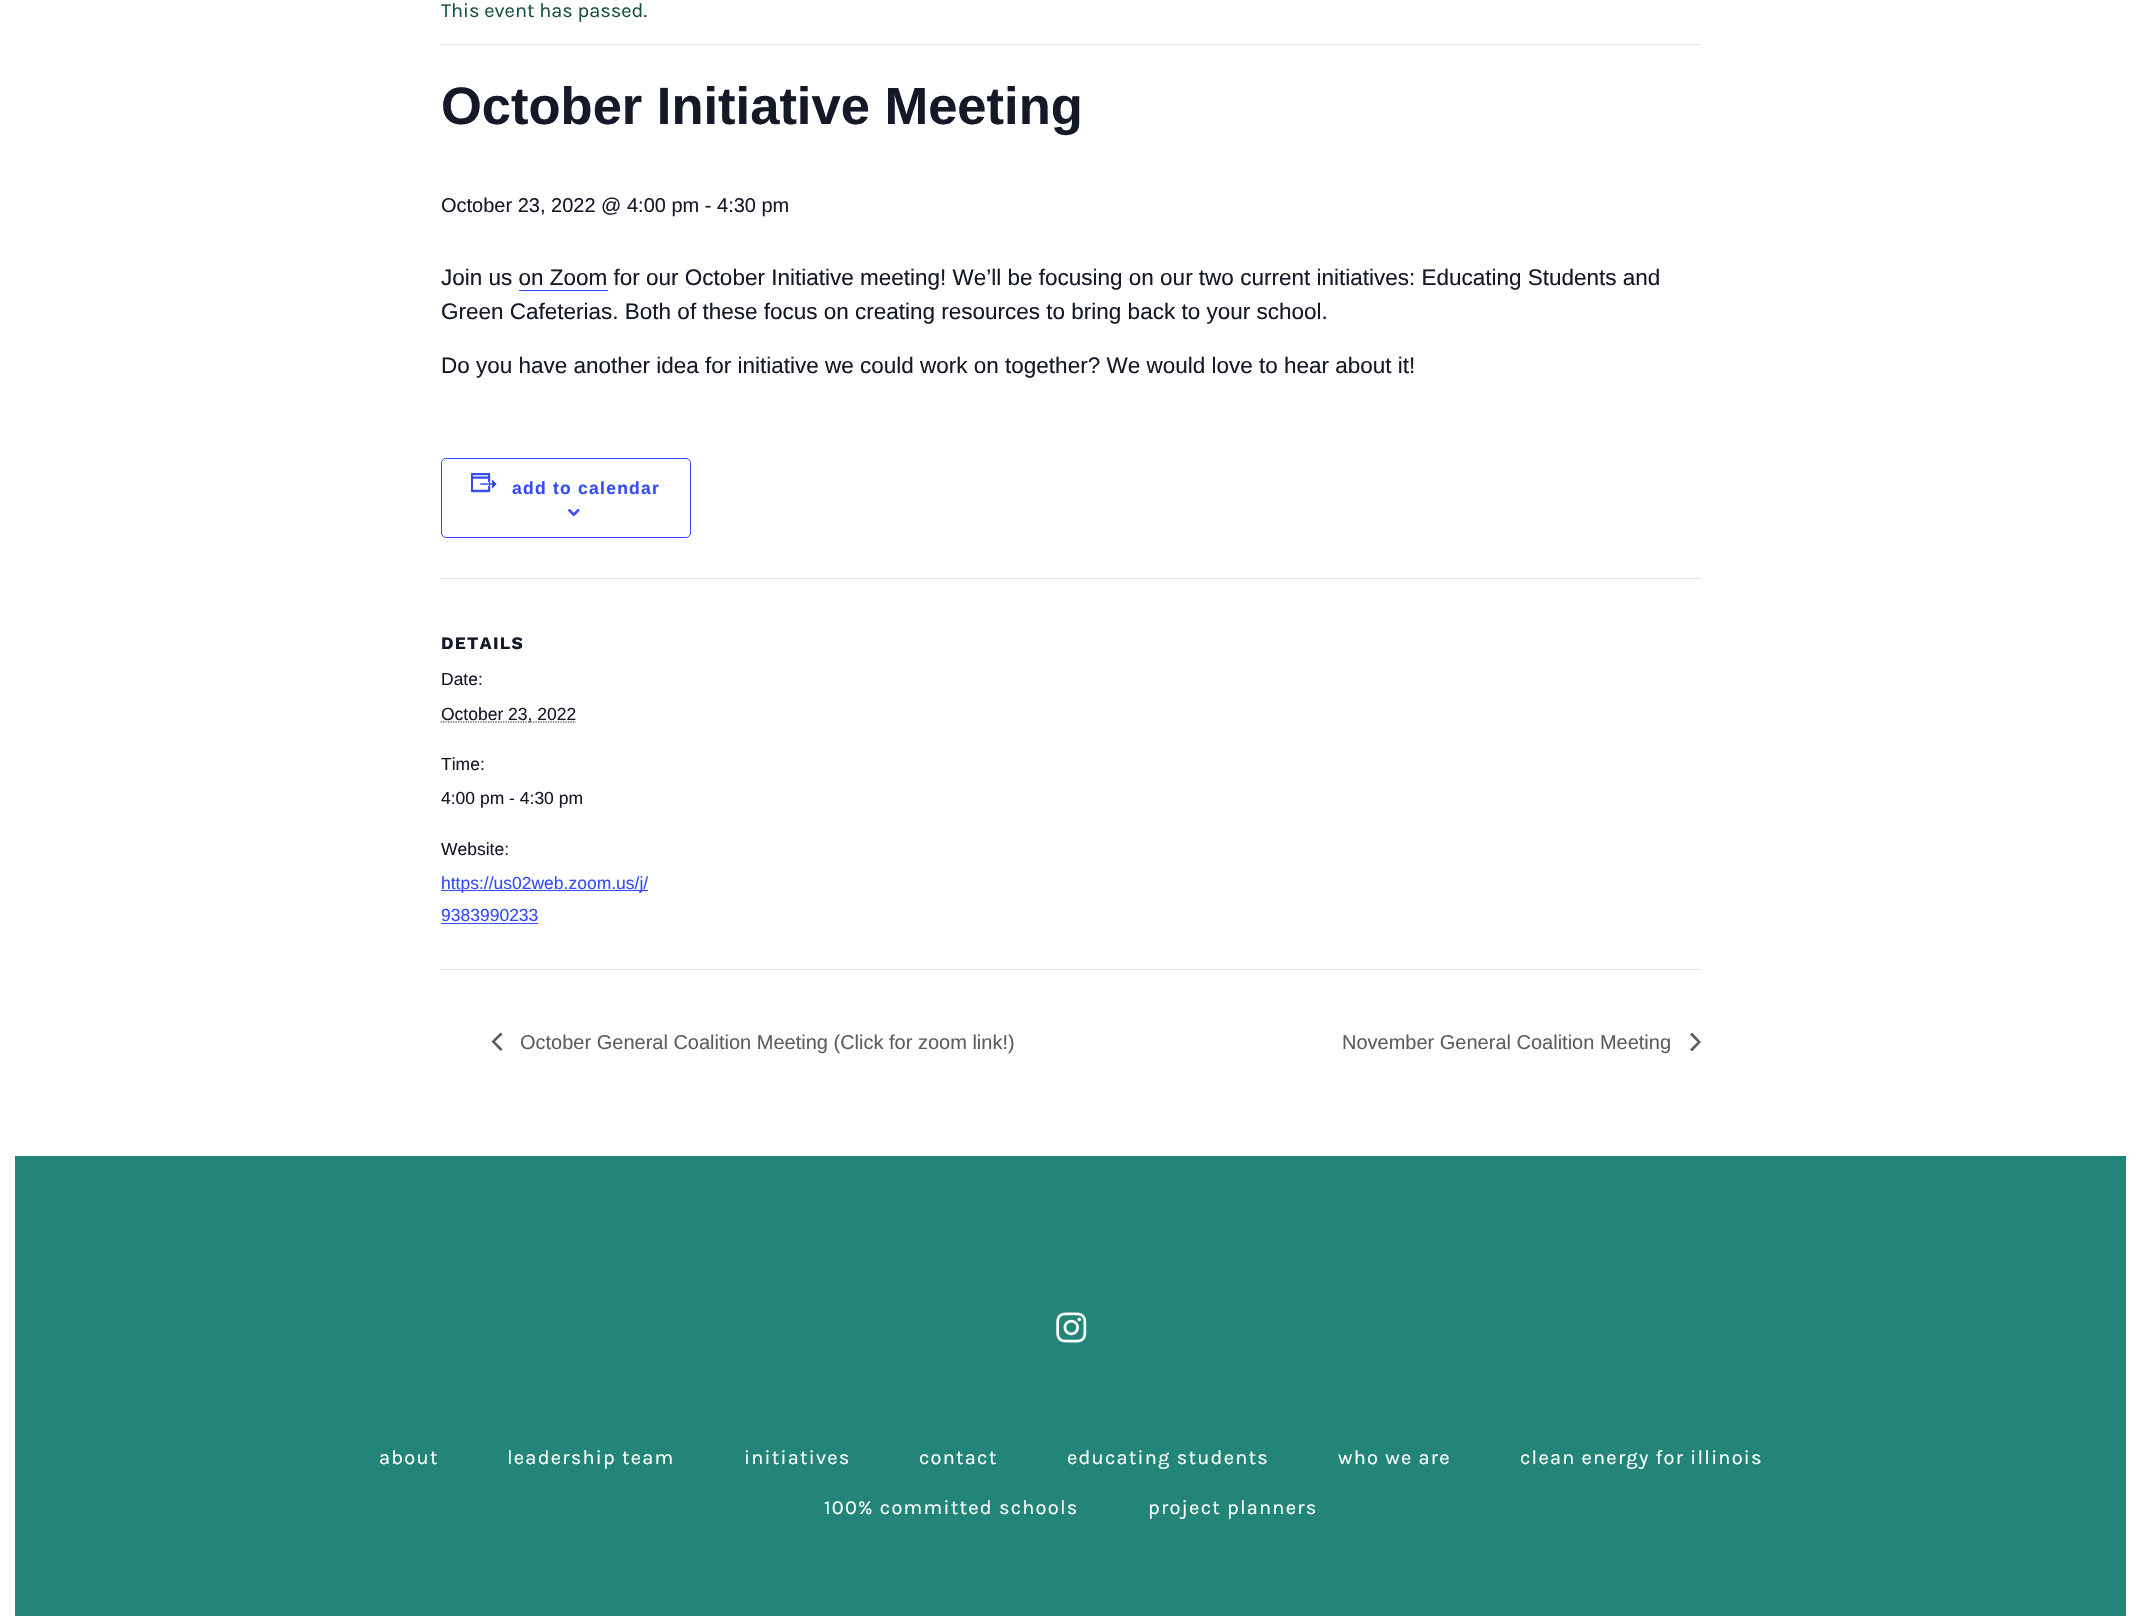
void draw(SkCanvas* c) {
SkPaint p;
p.setAntiAlias(true);
auto F=[&](const char* family, int weight, float size, bool italic = false){SkFontStyle style(weight, SkFontStyle::kNormal_Width,italic ? SkFontStyle::kItalic_Slant : SkFontStyle::kUpright_Slant);SkFont result(fontMgr->matchFamilyStyle(family, style), size);result.setSubpixel(true);return result;};
auto T=[&](const char* s, float x, float y, const SkFont& font){c->drawString(s, x, y, font, p);};
auto L=[&](const char* s, float x, float y, const SkFont& font, const SkPaint& ink, float letter, float word){std::vector<SkGlyphID> glyphs(font.countText(s, strlen(s), SkTextEncoding::kUTF8));std::vector<float> xs(glyphs.size());font.textToGlyphs(s, strlen(s), SkTextEncoding::kUTF8, glyphs);font.getXPos(glyphs, xs, x);float extra = 0;for (size_t i = 0; i < glyphs.size(); i++) {xs[i] += extra;extra += letter + word * (glyphs[i] == font.unicharToGlyph(' '));}c->drawTextBlob(SkTextBlob::MakeFromPosHGlyphs(glyphs, xs, y, font), 0, 0, ink);};
auto R=[&](float x, float y, float w, float h){c->drawRect(SkRect::MakeXYWH(x, y, w, h), p);};
auto I=[&](const char* path, float x, float y, float w, float h){auto image = SkImages::DeferredFromEncodedData(SkData::MakeFromFileName(path));c->drawImageRect(image, SkRect::MakeXYWH(x, y, w, h), SkSamplingOptions());};
auto P=[&](const char* data, bool evenOdd = false){SkPath result = *SkParsePath::FromSVGString(data);if (evenOdd) result.setFillType(SkPathFillType::kEvenOdd);return result;};
c->clear(0xffffffff);
p.setColor(0xffe4e4e4);
R(441,44,1260,1);
auto f1 = F("Karla",400,20);
p.setColor(0xff165043);
T("This event has passed.",441,17,f1);
auto f2 = F("Liberation Sans",700,52.5);
p.setColor(0xff141827);
T("October Initiative Meeting",441,124,f2);
auto f3 = F("Liberation Sans",400,20);
T("October 23, 2022 @ 4:00 pm - 4:30 pm",441,212,f3);
auto f4 = F("Liberation Sans",400,22.5);
T("Join us on Zoom for our October Initiative meeting! We’ll be focusing on our two current initiatives: Educating Students and",441,285,f4);
p.setColor(0xff334aff);
R(519,290,89,1);
p.setColor(0xff141827);
T("Green Cafeterias. Both of these focus on creating resources to bring back to your school.",441,319,f4);
T("Do you have another idea for initiative we could work on together? We would love to hear about it!",441,373,f4);
p.setStroke(true);
p.setStrokeWidth(1);
p.setColor(0xff334aff);
c->drawRoundRect(SkRect::MakeXYWH(441.5,458.5,249,79),4.5,4.5,p);
I("1.png",471,473,26,20);
auto f5 = F("Liberation Sans",700,17.5);
p.setStroke(false);
L("add to calendar",512,494,f5,p,1.25,0);
I("2.png",568,509,12,7);
p.setColor(0xffe4e4e4);
R(441,578,1260,1);
auto f6 = F("Work Sans",700,17.5);
p.setColor(0xff141827);
L("DETAILS",441,649,f6,p,1.25,0);
auto f7 = F("Liberation Sans",400,17.5);
T("Date:",441,685,f7);
p.setStroke(true);
p.setStrokeWidth(1.2);
p.setPathEffect(SkDashPathEffect::Make({{1.25f,1.25f}}, 0));
c->drawPath(P("M440.5 722h135.5"),p);
p.setPathEffect(nullptr);
p.setStroke(false);
T("October 23, 2022",441,720,f7);
T("Time:",441,770,f7);
T("4:00 pm - 4:30 pm",441,804,f7);
T("Website:",441,855,f7);
p.setColor(0xff334aff);
R(441,890,207,1);
T("https://us02web.zoom.us/j/",441,889,f7);
T("9383990233",441,921,f7);
R(441,923,97,1);
p.setColor(0xffe4e4e4);
R(441,969,1260,1);
p.setColor(0xff5d5d5d);
c->drawPath(P("M502.5 1049l-2 2l-9-9.5l9-9l2 2l-7.5 7z"),p);
T("October General Coalition Meeting (Click for zoom link!)",520,1049,f3);
T("November General Coalition Meeting",1342,1049,f3);
c->save();
c->clipRect(SkRect::MakeXYWH(1690,1033,11,18));
c->drawPath(P("M1690 1034.5l2-2l9 9.5l-9 9.5l-2-2l7.5-7.5z"),p);
c->restore();
p.setColor(0xff238578);
R(15,1156,2111,460);
I("3.png",1056,1312,31,31);
p.setColor(0xffffffff);
L("about",379,1464,f1,p,1.25,0);
L("leadership team",507,1464,f1,p,1.25,0);
L("initiatives",744,1464,f1,p,1.25,0);
L("contact",919,1464,f1,p,1.25,0);
L("educating students",1067,1464,f1,p,1.25,0);
L("who we are",1338,1464,f1,p,1.25,0);
L("clean energy for illinois",1520,1464,f1,p,1.25,0);
L("100% committed schools",824,1514,f1,p,1.25,0);
L("project planners",1148,1514,f1,p,1.25,0);
}
